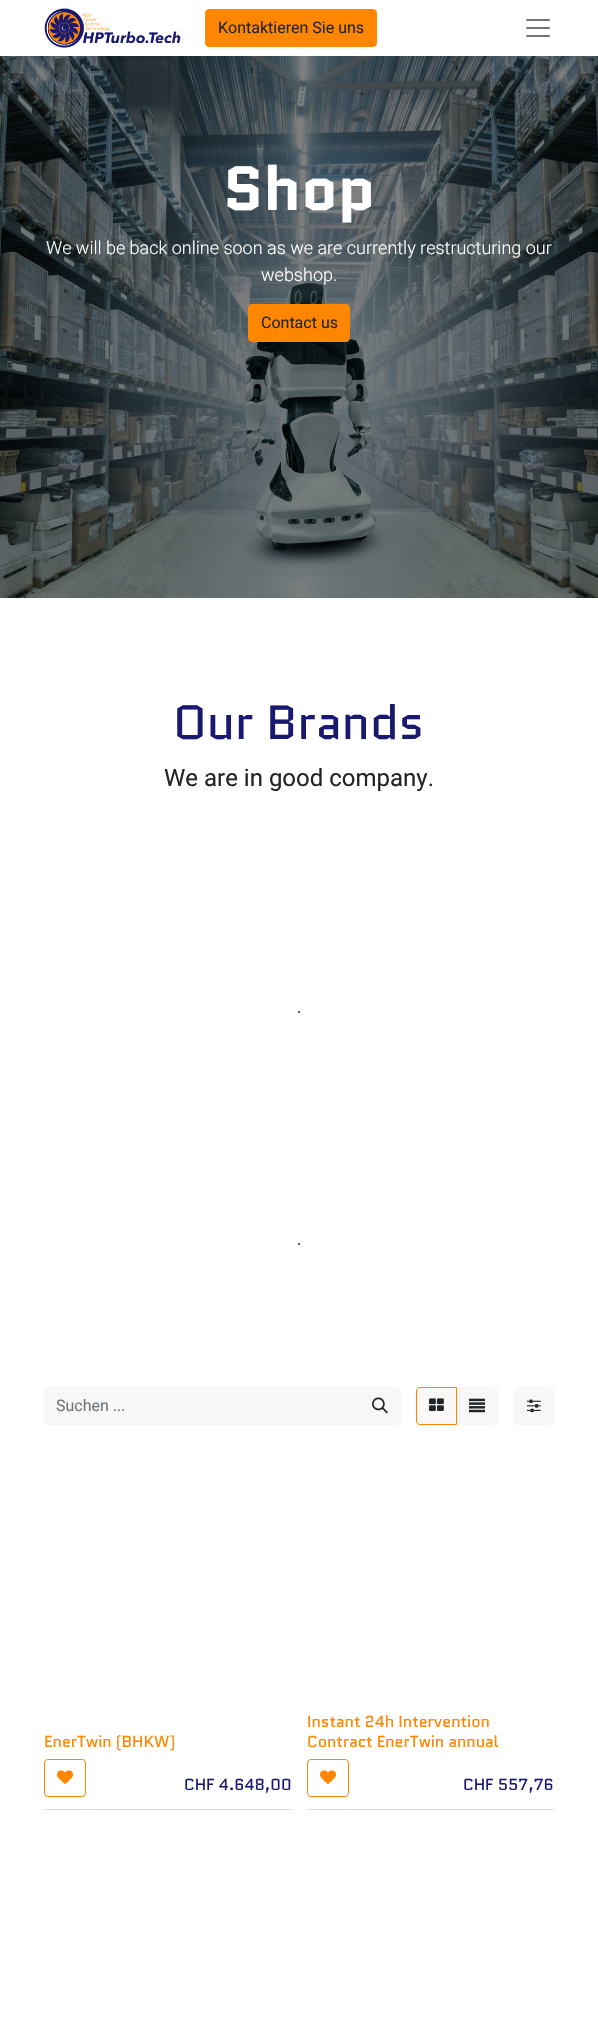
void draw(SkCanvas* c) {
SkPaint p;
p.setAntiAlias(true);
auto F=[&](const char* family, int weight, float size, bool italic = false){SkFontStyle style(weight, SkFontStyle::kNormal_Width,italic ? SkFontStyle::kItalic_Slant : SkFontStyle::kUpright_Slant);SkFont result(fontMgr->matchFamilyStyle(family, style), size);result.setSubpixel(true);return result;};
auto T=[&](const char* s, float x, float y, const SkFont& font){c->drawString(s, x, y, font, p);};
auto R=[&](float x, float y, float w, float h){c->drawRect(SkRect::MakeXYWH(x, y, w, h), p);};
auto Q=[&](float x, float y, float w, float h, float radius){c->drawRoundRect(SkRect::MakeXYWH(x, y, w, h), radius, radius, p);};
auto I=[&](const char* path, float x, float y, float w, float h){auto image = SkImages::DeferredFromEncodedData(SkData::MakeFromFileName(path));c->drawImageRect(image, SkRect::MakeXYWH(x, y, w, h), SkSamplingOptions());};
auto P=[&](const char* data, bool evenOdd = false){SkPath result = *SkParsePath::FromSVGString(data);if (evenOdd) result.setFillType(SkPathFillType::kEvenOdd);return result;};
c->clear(0xffffffff);
I("1.png",44,8,137,40);
p.setColor(0xffff8600);
c->drawRoundRect(SkRect::MakeXYWH(205.5,9.5,171,37),3.5,3.5,p);
p.setStroke(true);
p.setStrokeWidth(1);
c->drawRoundRect(SkRect::MakeXYWH(205.5,9.5,171,37),3.5,3.5,p);
auto f1 = F("Roboto",400,16);
p.setStroke(false);
p.setColor(0xff212529);
T("Kontaktieren Sie uns",218,33,f1);
I("2.png",526,19,24,18);
I("3.png",0,56,598,542);
auto f2 = F("Quantico",700,62);
p.setColor(0xffffffff);
T("Shop",223,210,f2);
auto f3 = F("Roboto",300,18);
T("We will be back online soon as we are currently restructuring our",46,254,f3);
T("webshop.",261,281,f3);
p.setColor(0xffff8600);
c->drawRoundRect(SkRect::MakeXYWH(248.5,304.5,101,37),3.5,3.5,p);
p.setStroke(true);
c->drawRoundRect(SkRect::MakeXYWH(248.5,304.5,101,37),3.5,3.5,p);
p.setStroke(false);
p.setColor(0xff212529);
T("Contact us",261,328,f1);
auto f4 = F("Quantico",400,48);
p.setColor(0xff191970);
T("Our Brands",173,739,f4);
auto f5 = F("Roboto",400,24);
p.setColor(0xff212529);
T("We are in good company.",164,786,f5);
T(".",297,1013,f1);
T(".",297,1245,f1);
p.setColor(0xfff9f7f6);
c->drawPath(P("M48 1387h312v38h-312c-2 0-4-2-4-4v-30c0-2 2-4 4-4z"),p);
p.setColor(0xff6c757d);
T("Suchen ...",56,1411,f1);
p.setColor(0xfff9f7f6);
c->drawPath(P("M359 1387h38c2 0 4 2 4 4v30c0 2-2 4-4 4h-38z"),p);
I("4.png",372,1397,16,17);
c->drawPath(P("M456 1387h38c2 0 4 2 4 4v30c0 2-2 4-4 4h-38z"),p);
p.setColor(0xfffaf9f8);
c->drawPath(P("M420 1387.5h36.5v37h-36.5c-2 0-3.5-1.5-3.5-3.5v-30c0-2 1.5-3.5 3.5-3.5z"),p);
p.setStroke(true);
p.setColor(0xffff8600);
c->drawPath(P("M420 1387.5h36.5v37h-36.5c-2 0-3.5-1.5-3.5-3.5v-30c0-2 1.5-3.5 3.5-3.5z"),p);
I("5.png",429,1398,15,13);
I("6.png",469,1398,16,15);
p.setStroke(false);
p.setColor(0xfff9f7f6);
Q(514,1387,40,38,4);
I("7.png",527,1399,14,14);
p.setColor(0xffdfdfdf);
R(44,1809,248,1);
auto f6 = F("Quantico",400,16);
p.setColor(0xffff8600);
T("EnerTwin (BHKW)",44,1747,f6);
p.setStroke(true);
c->drawRoundRect(SkRect::MakeXYWH(44.5,1759.5,41,37),3.5,3.5,p);
I("8.png",57,1770,16,15);
p.setStroke(false);
p.setColor(0xff191970);
T("CHF 4.648,00",184,1790,f6);
p.setColor(0xffdfdfdf);
R(307,1809,247,1);
p.setColor(0xffff8600);
T("Instant 24h Intervention",307,1727,f6);
T("Contract EnerTwin annual",307,1747,f6);
p.setStroke(true);
c->drawRoundRect(SkRect::MakeXYWH(307.5,1759.5,41,37),3.5,3.5,p);
I("8.png",320,1770,16,15);
p.setStroke(false);
p.setColor(0xff191970);
T("CHF 557,76",463,1790,f6);
}
